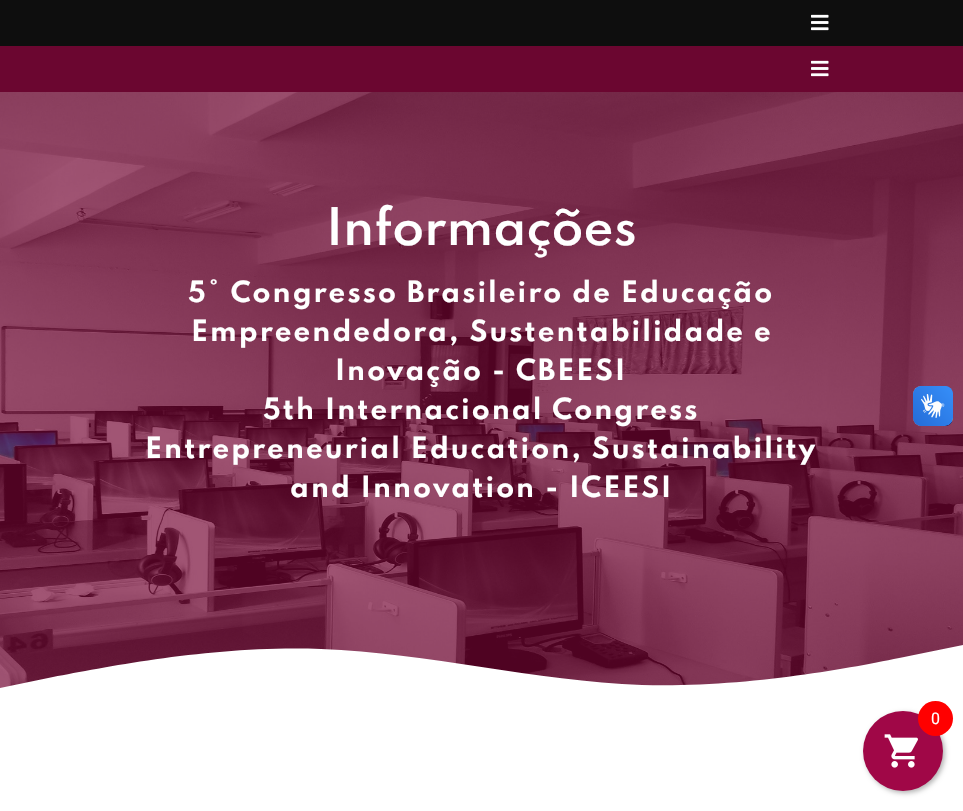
void draw(SkCanvas* c) {
SkPaint p;
p.setAntiAlias(true);
auto F=[&](const char* family, int weight, float size, bool italic = false){SkFontStyle style(weight, SkFontStyle::kNormal_Width,italic ? SkFontStyle::kItalic_Slant : SkFontStyle::kUpright_Slant);SkFont result(fontMgr->matchFamilyStyle(family, style), size);result.setSubpixel(true);return result;};
auto T=[&](const char* s, float x, float y, const SkFont& font){c->drawString(s, x, y, font, p);};
auto L=[&](const char* s, float x, float y, const SkFont& font, const SkPaint& ink, float letter, float word){std::vector<SkGlyphID> glyphs(font.countText(s, strlen(s), SkTextEncoding::kUTF8));std::vector<float> xs(glyphs.size());font.textToGlyphs(s, strlen(s), SkTextEncoding::kUTF8, glyphs);font.getXPos(glyphs, xs, x);float extra = 0;for (size_t i = 0; i < glyphs.size(); i++) {xs[i] += extra;extra += letter + word * (glyphs[i] == font.unicharToGlyph(' '));}c->drawTextBlob(SkTextBlob::MakeFromPosHGlyphs(glyphs, xs, y, font), 0, 0, ink);};
auto R=[&](float x, float y, float w, float h){c->drawRect(SkRect::MakeXYWH(x, y, w, h), p);};
auto I=[&](const char* path, float x, float y, float w, float h){auto image = SkImages::DeferredFromEncodedData(SkData::MakeFromFileName(path));c->drawImageRect(image, SkRect::MakeXYWH(x, y, w, h), SkSamplingOptions());};
auto P=[&](const char* data, bool evenOdd = false){SkPath result = *SkParsePath::FromSVGString(data);if (evenOdd) result.setFillType(SkPathFillType::kEvenOdd);return result;};
c->clear(0xffffffff);
p.setColor(0xff0e0e0e);
R(0,0,963,46);
I("1.png",811,14,18,17);
p.setColor(0xff6b0630);
R(0,46,963,46);
I("2.png",811,60,18,17);
I("3.png",0,92,963,596);
auto f1 = F("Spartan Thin",600,46);
p.setColor(0xffffffff);
T("Informações",326,245,f1);
auto f2 = F("Spartan Thin",700,26);
L("5° Congresso Brasileiro de Educação",188,302,f2,p,2,0);
L("Empreendedora, Sustentabilidade e",191,341,f2,p,2,0);
L("Inovação - CBEESI",335,380,f2,p,2,0);
L("5th Internacional Congress",263,419,f2,p,2,0);
L("Entrepreneurial Education, Sustainability",145,458,f2,p,2,0);
L("and Innovation - ICEESI",290,497,f2,p,2,0);
c->drawPath(P("M0 688l53-11c54-10 161-32 268-28c107 4 214 32 321 36c107 3 214-18 267-29l54-11v86h-963z"),p);
I("4.png",913,386,40,40);
I("5.png",913,386,40,40);
p.setColor(0x4d000000);
p.setMaskFilter(SkMaskFilter::MakeBlur(kNormal_SkBlurStyle, 2.5));
c->drawRoundRect(SkRect::MakeXYWH(865,713,80,80),40,40,p);
p.setMaskFilter(nullptr);
p.setColor(0xffa00747);
c->drawCircle(903,751,40,p);
p.setColor(0xffff0000);
c->drawCircle(935.5,718.5,17.5,p);
auto f3 = F("Roboto",400,16);
p.setColor(0xffffffff);
T("0",931,724,f3);
I("6.png",884,734,34,34);
}
